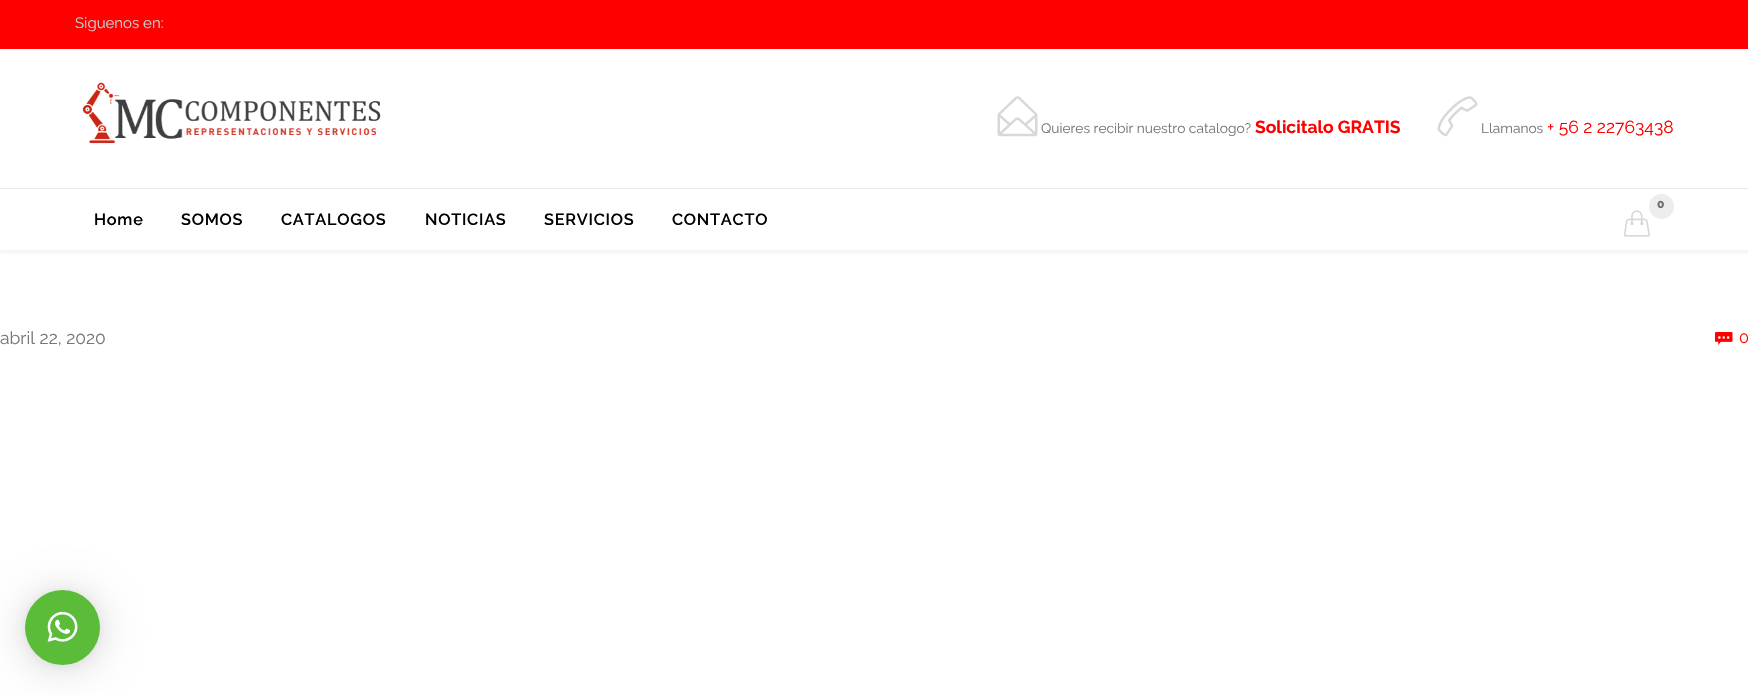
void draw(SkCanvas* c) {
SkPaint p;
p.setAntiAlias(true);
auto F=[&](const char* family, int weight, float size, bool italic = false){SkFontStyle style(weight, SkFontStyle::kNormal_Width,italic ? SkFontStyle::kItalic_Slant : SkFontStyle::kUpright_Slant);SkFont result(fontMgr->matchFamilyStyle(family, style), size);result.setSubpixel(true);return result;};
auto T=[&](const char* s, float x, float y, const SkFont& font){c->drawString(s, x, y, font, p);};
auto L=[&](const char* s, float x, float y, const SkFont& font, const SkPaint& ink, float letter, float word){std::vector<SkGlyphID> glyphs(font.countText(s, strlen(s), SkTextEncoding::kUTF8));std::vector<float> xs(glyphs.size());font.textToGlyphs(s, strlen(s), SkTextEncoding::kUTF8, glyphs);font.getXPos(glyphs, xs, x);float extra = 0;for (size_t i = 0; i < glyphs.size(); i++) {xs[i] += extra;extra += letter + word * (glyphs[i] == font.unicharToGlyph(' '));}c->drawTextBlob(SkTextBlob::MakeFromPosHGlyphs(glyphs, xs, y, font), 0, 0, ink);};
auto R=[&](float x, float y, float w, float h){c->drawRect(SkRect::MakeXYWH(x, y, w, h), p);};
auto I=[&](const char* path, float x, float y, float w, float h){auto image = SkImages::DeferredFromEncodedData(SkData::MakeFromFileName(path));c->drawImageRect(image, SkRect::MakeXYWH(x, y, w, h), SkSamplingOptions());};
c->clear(0xffffffff);
p.setColor(0x0a000000);
p.setMaskFilter(SkMaskFilter::MakeBlur(kNormal_SkBlurStyle, 1));
c->drawRect(SkRect::MakeXYWH(0,3,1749,250),p);
p.setMaskFilter(nullptr);
p.setColor(0xffff0000);
R(0,0,1748,49);
auto f1 = F("Raleway",400,15);
p.setColor(0xffccd0d0);
T("Siguenos en:",75,28,f1);
p.setColor(0xffffffff);
R(0,49,1748,139);
I("1.png",82,82,299,62);
I("2.png",997,96,41,41);
auto f2 = F("Raleway",400,13.75);
p.setColor(0xff767676);
T("Quieres recibir nuestro catalogo?",1041,133,f2);
auto f3 = F("Raleway",700,17.5);
p.setColor(0xffff0000);
T("Solicitalo GRATIS",1255,133,f3);
I("3.png",1437,96,41,41);
p.setColor(0xff767676);
T("Llamanos",1481,133,f2);
auto f4 = F("Raleway",400,17.5);
p.setColor(0xffff0000);
T("+ 56 2 22763438",1547,133,f4);
p.setColor(0xffffffff);
R(0,189,1748,61);
p.setColor(0xffeaeaeb);
R(0,188,1748,1);
I("4.png",1623,210,27,27);
p.setColor(0xffededed);
c->drawCircle(1661.5,206.5,12.5,p);
auto f5 = F("Raleway",800,12);
p.setColor(0xff6e6e6e);
T("0",1657,208,f5);
auto f6 = F("Raleway",600,16.25);
p.setColor(0xff000000);
L("Home",94,225,f6,p,.75,0);
L("SOMOS",181,225,f6,p,.75,0);
L("CATALOGOS",281,225,f6,p,.75,0);
L("NOTICIAS",425,225,f6,p,.75,0);
L("SERVICIOS",544,225,f6,p,.75,0);
L("CONTACTO",672,225,f6,p,.75,0);
p.setColor(0xff767676);
T("abril 22, 2020",0,344,f4);
I("5.png",1715,332,18,13);
auto f7 = F("Raleway",400,16.25);
p.setColor(0xffff0000);
T("0",1739,343,f7);
p.setColor(0x29000000);
p.setMaskFilter(SkMaskFilter::MakeBlur(kNormal_SkBlurStyle, 20));
c->drawRoundRect(SkRect::MakeXYWH(25,593,75,75),37.5,37.5,p);
p.setMaskFilter(nullptr);
p.setColor(0x0f000000);
p.setMaskFilter(SkMaskFilter::MakeBlur(kNormal_SkBlurStyle, 4));
c->drawRoundRect(SkRect::MakeXYWH(25,591,75,75),37.5,37.5,p);
p.setMaskFilter(nullptr);
p.setColor(0xff5bbc3a);
c->drawCircle(62.5,627.5,37.5,p);
I("6.png",47,611,31,31);
}
